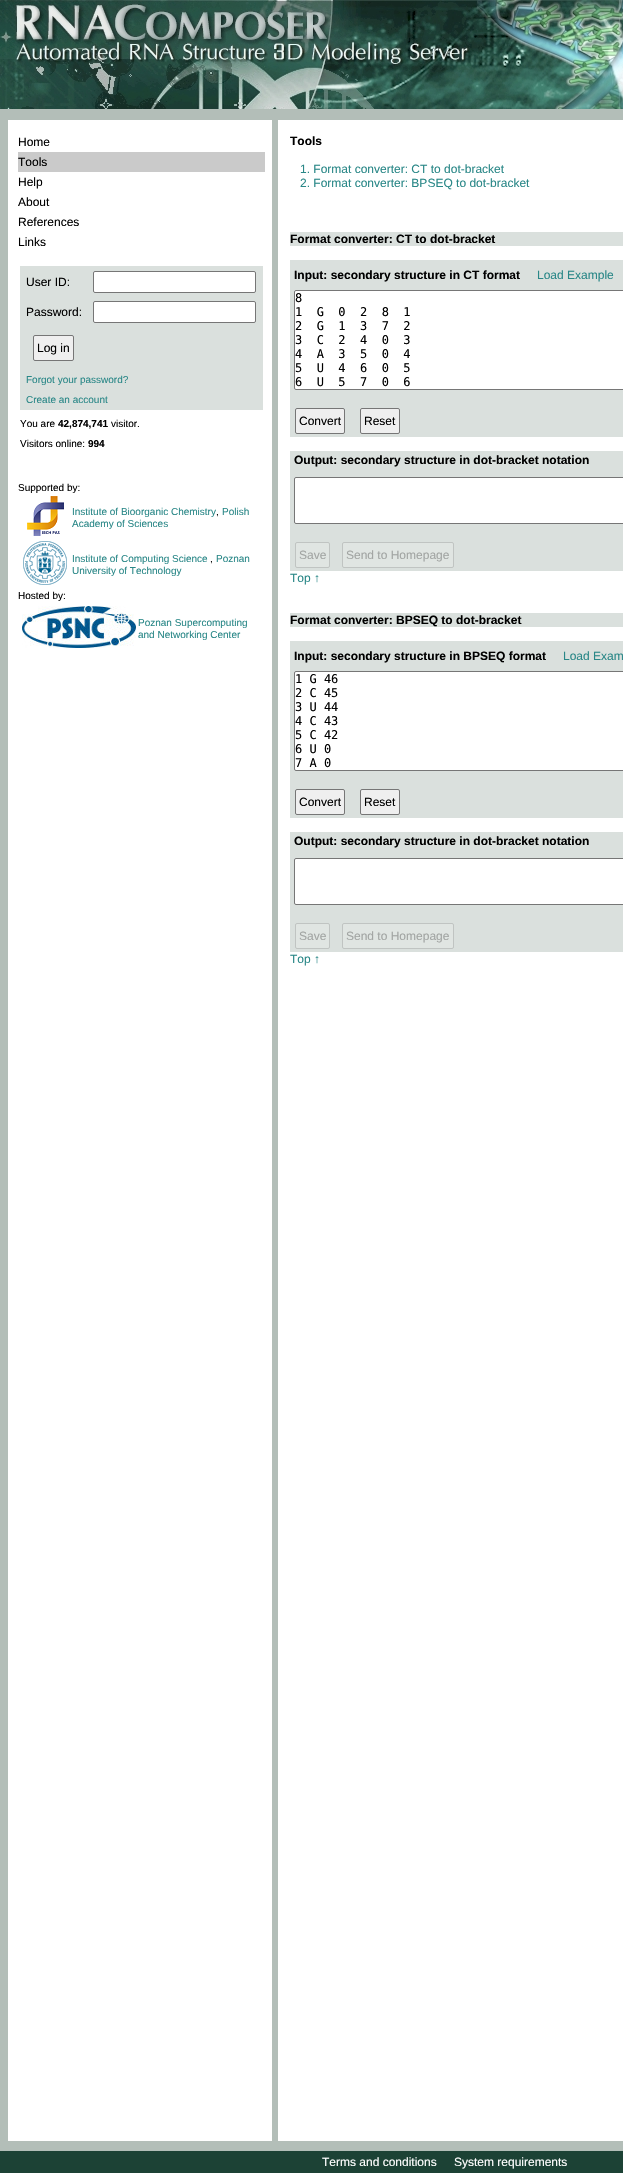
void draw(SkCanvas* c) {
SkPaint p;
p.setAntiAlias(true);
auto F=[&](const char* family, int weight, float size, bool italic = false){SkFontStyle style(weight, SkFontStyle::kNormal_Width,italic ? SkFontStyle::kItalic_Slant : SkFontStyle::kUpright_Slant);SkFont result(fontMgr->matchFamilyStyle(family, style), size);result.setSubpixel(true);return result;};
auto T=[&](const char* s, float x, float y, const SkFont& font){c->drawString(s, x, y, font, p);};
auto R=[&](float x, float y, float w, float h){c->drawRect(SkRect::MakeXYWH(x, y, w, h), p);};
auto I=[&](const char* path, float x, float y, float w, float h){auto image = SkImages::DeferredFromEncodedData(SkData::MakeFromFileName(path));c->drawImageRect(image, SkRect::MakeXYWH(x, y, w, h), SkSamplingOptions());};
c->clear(0xffb3beb8);
I("1.png",0,0,623,109);
p.setColor(0xffffffff);
R(8,120,264,2021);
auto f1 = F("Liberation Sans",400,12);
p.setColor(0xff000000);
T("Home",18,146,f1);
p.setColor(0xffcacaca);
R(18,152,247,20);
p.setColor(0xff000000);
T("Tools",18,166,f1);
T("Help",18,186,f1);
T("About",18,206,f1);
T("References",18,226,f1);
T("Links",18,246,f1);
p.setColor(0xffdae0dd);
R(20,266,243,144);
p.setColor(0xff000000);
T("User ID:",26,286,f1);
p.setColor(0xffffffff);
c->drawRoundRect(SkRect::MakeXYWH(93.5,271.5,162,21),1.5,1.5,p);
p.setStroke(true);
p.setStrokeWidth(1);
p.setColor(0xff767676);
c->drawRoundRect(SkRect::MakeXYWH(93.5,271.5,162,21),1.5,1.5,p);
p.setStroke(false);
p.setColor(0xff000000);
T("Password:",26,316,f1);
p.setColor(0xffffffff);
c->drawRoundRect(SkRect::MakeXYWH(93.5,301.5,162,21),1.5,1.5,p);
p.setStroke(true);
p.setColor(0xff767676);
c->drawRoundRect(SkRect::MakeXYWH(93.5,301.5,162,21),1.5,1.5,p);
p.setStroke(false);
p.setColor(0xffefefef);
c->drawRoundRect(SkRect::MakeXYWH(33.5,335.5,40,25),1.5,1.5,p);
p.setStroke(true);
p.setColor(0xff767676);
c->drawRoundRect(SkRect::MakeXYWH(33.5,335.5,40,25),1.5,1.5,p);
p.setStroke(false);
p.setColor(0xff000000);
T("Log in",37,352,f1);
auto f2 = F("Liberation Sans",400,10);
p.setColor(0xff298787);
T("Forgot your password?",26,383,f2);
T("Create an account",26,403,f2);
p.setColor(0xff000000);
T("You are",20,427,f2);
auto f3 = F("Liberation Sans",700,10);
T("42,874,741",58,427,f3);
T("visitor.",111,427,f2);
T("Visitors online:",20,447,f2);
T("994",88,447,f3);
T("Supported by:",18,491,f2);
I("2.png",27,496,37,40);
p.setColor(0xff298787);
T("Institute of Bioorganic Chemistry",72,515,f2);
p.setColor(0xff000000);
T(",",216,515,f2);
p.setColor(0xff298787);
T("Polish",222,515,f2);
T("Academy of Sciences",72,527,f2);
I("3.png",23,541,44,44);
T("Institute of Computing Science",72,562,f2);
p.setColor(0xff000000);
T(",",210,562,f2);
p.setColor(0xff298787);
T("Poznan",216,562,f2);
T("University of Technology",72,574,f2);
p.setColor(0xff000000);
T("Hosted by:",18,599,f2);
I("4.png",22,606,114,42);
p.setColor(0xff298787);
T("Poznan Supercomputing",138,626,f2);
T("and Networking Center",138,638,f2);
p.setColor(0xffffffff);
R(278,120,345,2021);
auto f4 = F("Liberation Sans",700,12);
p.setColor(0xff000000);
T("Tools",290,145,f4);
p.setColor(0xff298787);
T("1. Format converter: CT to dot-bracket",300,173,f1);
T("2. Format converter: BPSEQ to dot-bracket",300,187,f1);
p.setColor(0xffdae0dd);
R(290,232,333,14);
p.setColor(0xff000000);
T("Format converter: CT to dot-bracket",290,243,f4);
p.setColor(0xffdae0dd);
R(290,260,333,177);
p.setColor(0xff000000);
T("Input: secondary structure in CT format",294,279,f4);
p.setColor(0xff298787);
T("Load Example",537,279,f1);
p.setColor(0xffffffff);
c->drawRoundRect(SkRect::MakeXYWH(294.5,290.5,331,99),1.5,1.5,p);
p.setStroke(true);
p.setColor(0xff767676);
c->drawRoundRect(SkRect::MakeXYWH(294.5,290.5,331,99),1.5,1.5,p);
auto f5 = F("DejaVu Sans Mono",400,12);
p.setStroke(false);
p.setColor(0xff000000);
T("8",295,302,f5);
T("1  G  0  2  8  1",295,316,f5);
T("2  G  1  3  7  2",295,330,f5);
T("3  C  2  4  0  3",295,344,f5);
T("4  A  3  5  0  4",295,358,f5);
T("5  U  4  6  0  5",295,372,f5);
T("6  U  5  7  0  6",295,386,f5);
p.setColor(0xffefefef);
c->drawRoundRect(SkRect::MakeXYWH(295.5,408.5,49,25),1.5,1.5,p);
p.setStroke(true);
p.setColor(0xff767676);
c->drawRoundRect(SkRect::MakeXYWH(295.5,408.5,49,25),1.5,1.5,p);
p.setStroke(false);
p.setColor(0xff000000);
T("Convert",299,425,f1);
p.setColor(0xffefefef);
c->drawRoundRect(SkRect::MakeXYWH(360.5,408.5,39,25),1.5,1.5,p);
p.setStroke(true);
p.setColor(0xff767676);
c->drawRoundRect(SkRect::MakeXYWH(360.5,408.5,39,25),1.5,1.5,p);
p.setStroke(false);
p.setColor(0xff000000);
T("Reset",364,425,f1);
p.setColor(0xffdae0dd);
R(290,451,333,120);
p.setColor(0xff000000);
T("Output: secondary structure in dot-bracket notation",294,464,f4);
p.setColor(0xffffffff);
c->drawRoundRect(SkRect::MakeXYWH(294.5,477.5,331,46),1.5,1.5,p);
p.setStroke(true);
p.setColor(0xff767676);
c->drawRoundRect(SkRect::MakeXYWH(294.5,477.5,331,46),1.5,1.5,p);
p.setStroke(false);
p.setColor(0xffe0e5e2);
c->drawRoundRect(SkRect::MakeXYWH(295.5,542.5,34,25),1.5,1.5,p);
p.setStroke(true);
p.setColor(0xffc0c4c2);
c->drawRoundRect(SkRect::MakeXYWH(295.5,542.5,34,25),1.5,1.5,p);
p.setStroke(false);
p.setColor(0xffa2a5a3);
T("Save",299,559,f1);
p.setColor(0xffe0e5e2);
c->drawRoundRect(SkRect::MakeXYWH(342.5,542.5,111,25),1.5,1.5,p);
p.setStroke(true);
p.setColor(0xffc0c4c2);
c->drawRoundRect(SkRect::MakeXYWH(342.5,542.5,111,25),1.5,1.5,p);
p.setStroke(false);
p.setColor(0xffa2a5a3);
T("Send to Homepage",346,559,f1);
p.setColor(0xff298787);
T("Top ↑",290,582,f1);
p.setColor(0xffdae0dd);
R(290,613,333,14);
p.setColor(0xff000000);
T("Format converter: BPSEQ to dot-bracket",290,624,f4);
p.setColor(0xffdae0dd);
R(290,641,333,177);
p.setColor(0xff000000);
T("Input: secondary structure in BPSEQ format",294,660,f4);
p.setColor(0xff298787);
T("Load Exam",563,660,f1);
p.setColor(0xffffffff);
c->drawRoundRect(SkRect::MakeXYWH(294.5,671.5,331,99),1.5,1.5,p);
p.setStroke(true);
p.setColor(0xff767676);
c->drawRoundRect(SkRect::MakeXYWH(294.5,671.5,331,99),1.5,1.5,p);
p.setStroke(false);
p.setColor(0xff000000);
T("1 G 46",295,683,f5);
T("2 C 45",295,697,f5);
T("3 U 44",295,711,f5);
T("4 C 43",295,725,f5);
T("5 C 42",295,739,f5);
T("6 U 0",295,753,f5);
T("7 A 0",295,767,f5);
p.setColor(0xffefefef);
c->drawRoundRect(SkRect::MakeXYWH(295.5,789.5,49,25),1.5,1.5,p);
p.setStroke(true);
p.setColor(0xff767676);
c->drawRoundRect(SkRect::MakeXYWH(295.5,789.5,49,25),1.5,1.5,p);
p.setStroke(false);
p.setColor(0xff000000);
T("Convert",299,806,f1);
p.setColor(0xffefefef);
c->drawRoundRect(SkRect::MakeXYWH(360.5,789.5,39,25),1.5,1.5,p);
p.setStroke(true);
p.setColor(0xff767676);
c->drawRoundRect(SkRect::MakeXYWH(360.5,789.5,39,25),1.5,1.5,p);
p.setStroke(false);
p.setColor(0xff000000);
T("Reset",364,806,f1);
p.setColor(0xffdae0dd);
R(290,832,333,120);
p.setColor(0xff000000);
T("Output: secondary structure in dot-bracket notation",294,845,f4);
p.setColor(0xffffffff);
c->drawRoundRect(SkRect::MakeXYWH(294.5,858.5,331,46),1.5,1.5,p);
p.setStroke(true);
p.setColor(0xff767676);
c->drawRoundRect(SkRect::MakeXYWH(294.5,858.5,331,46),1.5,1.5,p);
p.setStroke(false);
p.setColor(0xffe0e5e2);
c->drawRoundRect(SkRect::MakeXYWH(295.5,923.5,34,25),1.5,1.5,p);
p.setStroke(true);
p.setColor(0xffc0c4c2);
c->drawRoundRect(SkRect::MakeXYWH(295.5,923.5,34,25),1.5,1.5,p);
p.setStroke(false);
p.setColor(0xffa2a5a3);
T("Save",299,940,f1);
p.setColor(0xffe0e5e2);
c->drawRoundRect(SkRect::MakeXYWH(342.5,923.5,111,25),1.5,1.5,p);
p.setStroke(true);
p.setColor(0xffc0c4c2);
c->drawRoundRect(SkRect::MakeXYWH(342.5,923.5,111,25),1.5,1.5,p);
p.setStroke(false);
p.setColor(0xffa2a5a3);
T("Send to Homepage",346,940,f1);
p.setColor(0xff298787);
T("Top ↑",290,963,f1);
p.setColor(0xff1c4235);
R(0,2151,623,22);
p.setColor(0xffffffff);
T("Terms and conditions",322,2166,f1);
T("System requirements",454,2166,f1);
}
